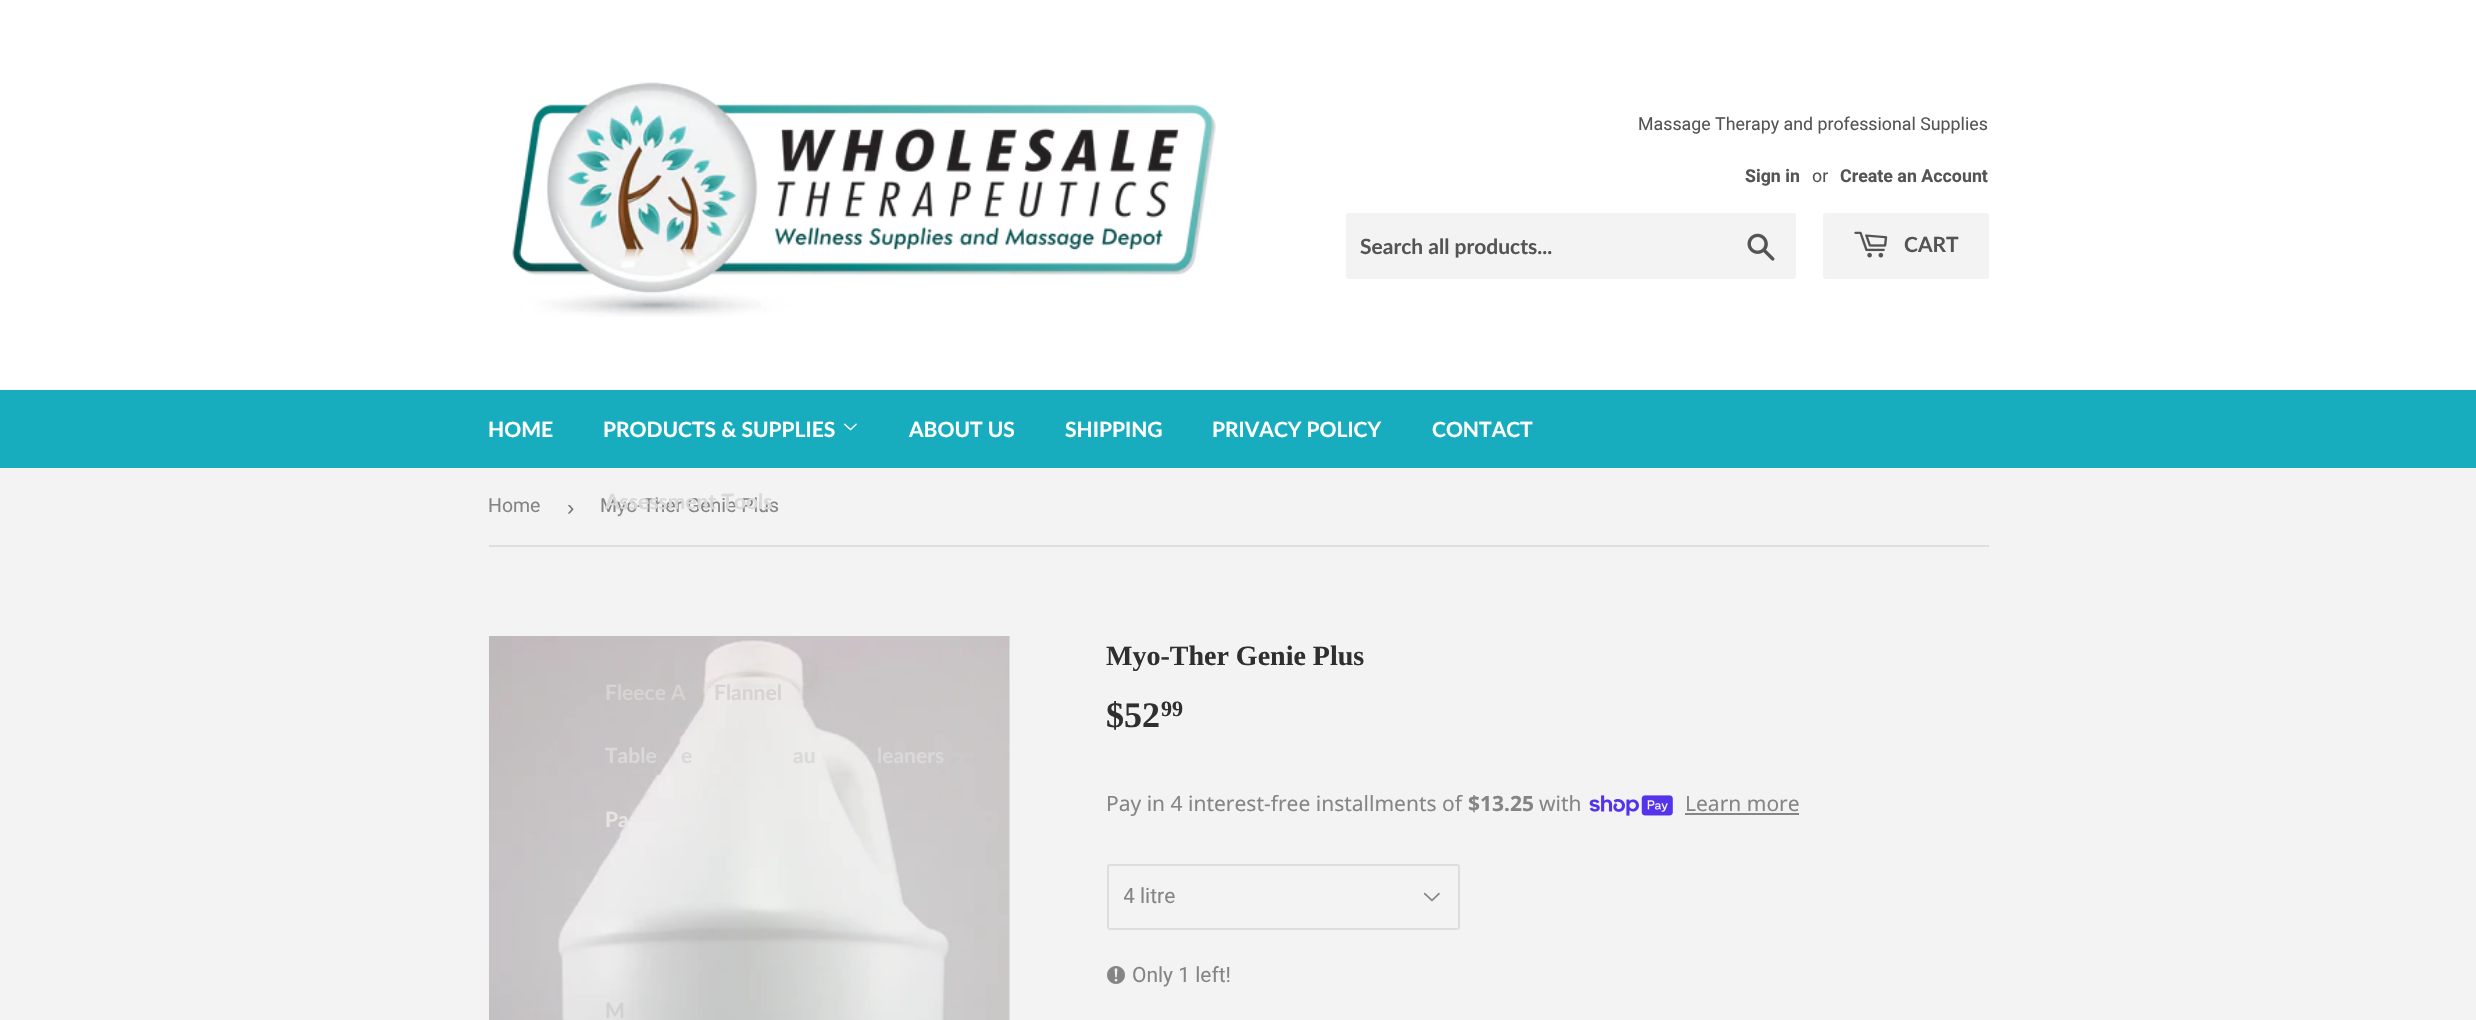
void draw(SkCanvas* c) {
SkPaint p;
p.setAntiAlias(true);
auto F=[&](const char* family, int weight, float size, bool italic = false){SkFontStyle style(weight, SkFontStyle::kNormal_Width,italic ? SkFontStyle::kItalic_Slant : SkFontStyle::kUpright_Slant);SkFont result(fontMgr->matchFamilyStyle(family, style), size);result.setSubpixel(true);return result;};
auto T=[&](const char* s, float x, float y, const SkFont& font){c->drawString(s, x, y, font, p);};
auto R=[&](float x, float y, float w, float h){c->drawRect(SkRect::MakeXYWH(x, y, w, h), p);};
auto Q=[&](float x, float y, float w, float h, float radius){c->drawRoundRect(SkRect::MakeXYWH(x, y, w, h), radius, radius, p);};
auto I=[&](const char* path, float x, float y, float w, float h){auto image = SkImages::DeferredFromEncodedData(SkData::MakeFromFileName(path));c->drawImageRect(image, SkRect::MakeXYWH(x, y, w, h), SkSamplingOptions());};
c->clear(0xfff3f3f3);
p.setColor(0xffffffff);
R(0,0,2476,390);
I("1.png",512,82,704,235);
auto f1 = F("Roboto",400,17.8);
p.setColor(0xff545454);
T("Massage Therapy and professional Supplies",1638,130,f1);
auto f2 = F("Roboto",700,17.8);
T("Sign in",1745,182,f2);
T("or",1812,182,f1);
T("Create an Account",1840,182,f2);
p.setColor(0xfff3f3f3);
Q(1346,213,450,66,3);
auto f3 = F("Lato",700,21);
p.setColor(0xff545454);
T("Search all products...",1360,254,f3);
I("2.png",1747,233,28,28);
p.setColor(0xfff3f3f3);
Q(1823,213,166,66,3);
I("3.png",1854,231,34,27);
p.setColor(0xff545454);
T("CART",1904,252,f3);
p.setColor(0xff17acbe);
R(0,390,2476,78);
p.setColor(0xffffffff);
T("HOME",488,437,f3);
T("PRODUCTS & SUPPLIES",603,437,f3);
I("4.png",844,423,13,8);
auto f4 = F("Roboto",400,19.5);
p.setColor(0xff858585);
T("Myo-Ther Genie Plus",600,512,f4);
p.setColor(0xffd9d9d9);
T("Assessment Tools",605,509,f3);
I("5.png",489,636,521,384);
p.setColor(0xffd6d3d3);
T("Fleece A",605,700,f3);
T("Flannel",714,700,f3);
p.setColor(0xffd9d9d9);
T("Table",605,763,f3);
T("e",681,763,f3);
T("au",793,763,f3);
T("leaners",877,763,f3);
p.setColor(0xffe6e5e4);
T("Pa",605,827,f3);
p.setColor(0xffd0d1d1);
T("M",605,1018,f3);
p.setColor(0xffffffff);
T("ABOUT US",909,437,f3);
T("SHIPPING",1065,437,f3);
T("PRIVACY POLICY",1212,437,f3);
T("CONTACT",1432,437,f3);
p.setColor(0xffdedede);
R(489,545,1500,2);
p.setColor(0xff858585);
T("Home",488,512,f4);
auto f5 = F("Liberation Sans",400,22);
p.setColor(0xff767676);
T("›",567,515,f5);
auto f6 = F("Liberation Serif",700,28);
p.setColor(0xff2f2f2f);
T("Myo-Ther Genie Plus",1106,665,f6);
auto f7 = F("Liberation Serif",700,36);
T("$52",1106,727,f7);
auto f8 = F("Liberation Serif",700,22);
T("99",1161,716,f8);
auto f9 = F("Noto Sans",400,21);
p.setColor(0xff858585);
T("Pay in 4 interest-free installments of",1106,811,f9);
auto f10 = F("Noto Sans",700,21);
T("$13.25",1468,811,f10);
T("with",1539,811,f9);
I("6.png",1589,795,84,21);
T("Learn more",1685,811,f9);
R(1685,813,114,2);
I("7.png",1424,892,16,10);
p.setStroke(true);
p.setStrokeWidth(2);
p.setColor(0xffdedede);
c->drawRoundRect(SkRect::MakeXYWH(1108,865,351,64),2,2,p);
c->save();
c->clipRect(SkRect::MakeXYWH(1124,882,292,30));
auto f11 = F("Roboto",400,21);
p.setStroke(false);
p.setColor(0xff858585);
T("4 litre",1123,903,f11);
c->restore();
I("8.png",1107,966,18,18);
T("Only 1 left!",1132,982,f11);
}
